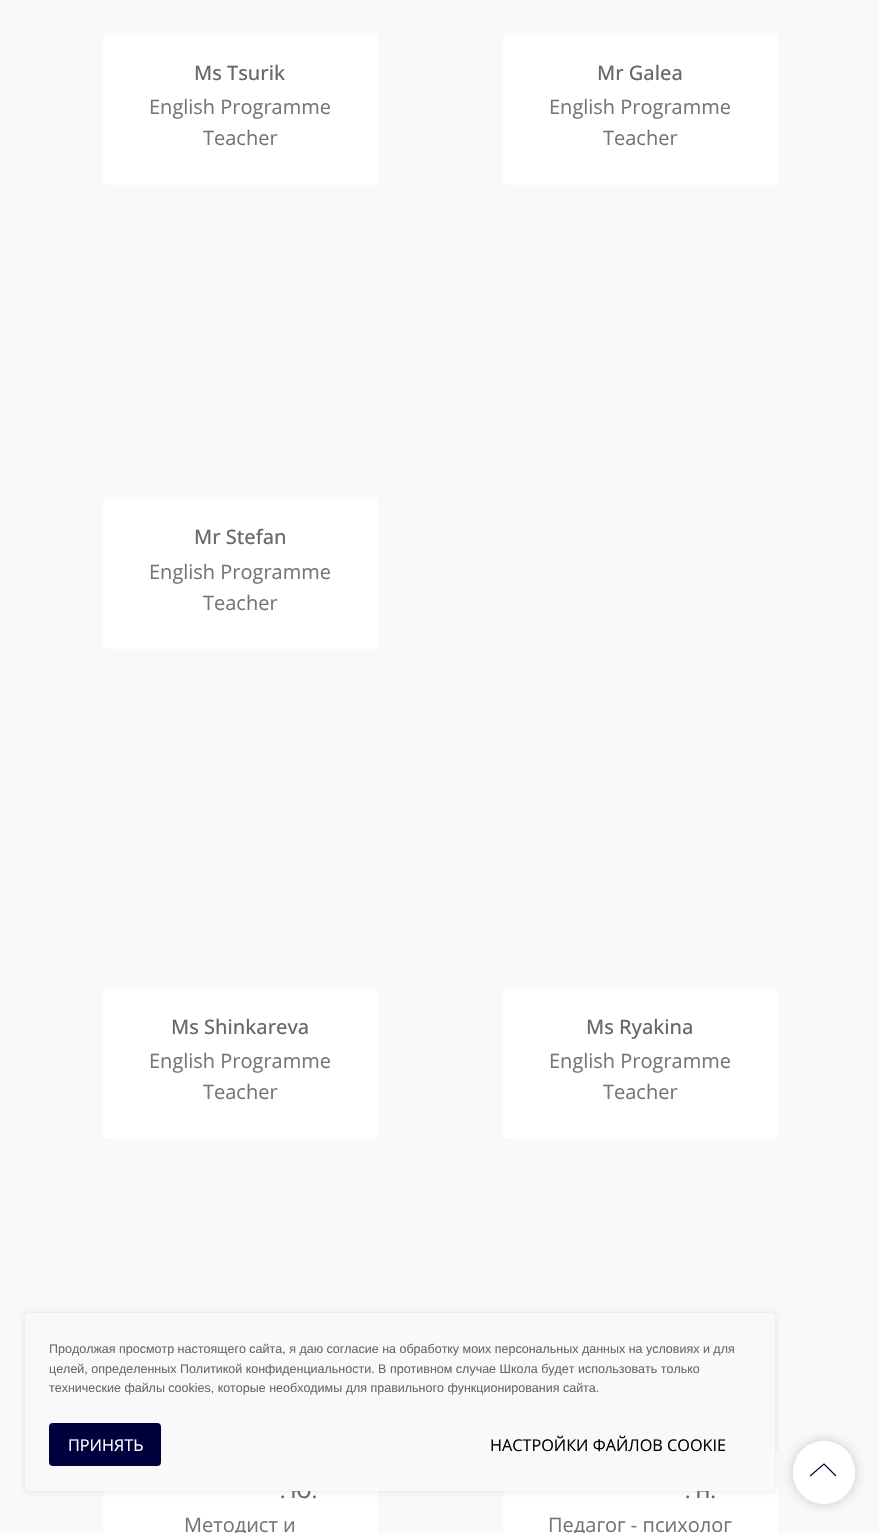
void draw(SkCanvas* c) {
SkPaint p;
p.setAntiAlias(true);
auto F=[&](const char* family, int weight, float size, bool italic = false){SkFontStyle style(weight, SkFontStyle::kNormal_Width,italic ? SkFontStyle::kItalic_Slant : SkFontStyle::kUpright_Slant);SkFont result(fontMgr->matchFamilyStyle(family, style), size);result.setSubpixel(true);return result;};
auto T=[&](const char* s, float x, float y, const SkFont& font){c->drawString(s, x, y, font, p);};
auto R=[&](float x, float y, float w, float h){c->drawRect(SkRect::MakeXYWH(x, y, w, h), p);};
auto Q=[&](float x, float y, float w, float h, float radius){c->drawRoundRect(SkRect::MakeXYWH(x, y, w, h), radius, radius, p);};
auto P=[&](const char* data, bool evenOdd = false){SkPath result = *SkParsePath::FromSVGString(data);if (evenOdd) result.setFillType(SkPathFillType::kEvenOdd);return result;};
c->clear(0xfff9f9f9);
p.setColor(0xffffffff);
c->drawPath(P("M103 35h275v146c0 2-2 4-4 4h-267c-2 0-4-2-4-4z"),p);
auto f1 = F("Open Sans",500,20);
p.setColor(0xff6d6767);
T("Ms Tsurik",194,80,f1);
auto f2 = F("Open Sans",400,20);
p.setColor(0xff757575);
T("English Programme",149,114,f2);
T("Teacher",203,145,f2);
p.setColor(0xffffffff);
c->drawPath(P("M503 35h275v146c0 2-2 4-4 4h-267c-2 0-4-2-4-4z"),p);
p.setColor(0xff6d6767);
T("Mr Galea",597,80,f1);
p.setColor(0xff757575);
T("English Programme",549,114,f2);
T("Teacher",603,145,f2);
p.setColor(0xffffffff);
c->drawPath(P("M103 499h275v146c0 2-2 4-4 4h-267c-2 0-4-2-4-4z"),p);
p.setColor(0xff6d6767);
T("Mr Stefan",194,544,f1);
p.setColor(0xff757575);
T("English Programme",149,579,f2);
T("Teacher",203,610,f2);
p.setColor(0xffffffff);
c->drawPath(P("M103 989h275v146c0 2-2 4-4 4h-267c-2 0-4-2-4-4z"),p);
p.setColor(0xff6d6767);
T("Ms Shinkareva",171,1034,f1);
p.setColor(0xff757575);
T("English Programme",149,1068,f2);
T("Teacher",203,1099,f2);
p.setColor(0xffffffff);
c->drawPath(P("M503 989h275v146c0 2-2 4-4 4h-267c-2 0-4-2-4-4z"),p);
p.setColor(0xff6d6767);
T("Ms Ryakina",586,1034,f1);
p.setColor(0xff757575);
T("English Programme",549,1068,f2);
T("Teacher",603,1099,f2);
p.setColor(0xffffffff);
R(103,1491,275,42);
p.setColor(0xff6d6767);
T(". Ю.",280,1498,f1);
p.setColor(0xff757575);
T("Методист и",184,1532,f2);
p.setColor(0xffffffff);
R(503,1453,275,80);
p.setColor(0xff6d6767);
T(". Н.",685,1498,f1);
p.setColor(0xff757575);
T("Педагог - психолог",548,1532,f2);
p.setColor(0x1a000000);
p.setMaskFilter(SkMaskFilter::MakeBlur(kNormal_SkBlurStyle, 3));
c->drawRoundRect(SkRect::MakeXYWH(25,1313,750,178),4,4,p);
p.setMaskFilter(nullptr);
p.setColor(0xfff9f9f9);
Q(25,1313,750,178,4);
auto f3 = F("Liberation Sans",400,12.5);
p.setColor(0xff6d6767);
T("Продолжая просмотр настоящего сайта, я даю согласие на обработку моих персональных данных на условиях и для",49,1353,f3);
T("целей, определенных Политикой конфиденциальности. В противном случае Школа будет использовать только",49,1373,f3);
T("технические файлы cookies, которые необходимы для правильного функционирования сайта.",49,1392,f3);
p.setColor(0xff00013c);
Q(49,1423,112,43,4);
auto f4 = F("Open Sans",400,16.25);
p.setColor(0xffffffff);
T("ПРИНЯТЬ",68,1451,f4);
p.setColor(0xff000000);
T("НАСТРОЙКИ ФАЙЛОВ COOKIE",490,1451,f4);
c->save();
c->clipPath(P("M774 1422h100v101h-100zm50 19c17 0 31 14 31 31v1c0 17-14 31-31 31c-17 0-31-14-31-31v-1c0-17 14-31 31-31z",true),true);
p.setColor(0x33000000);
p.setMaskFilter(SkMaskFilter::MakeBlur(kNormal_SkBlurStyle, 6));
c->drawRoundRect(SkRect::MakeXYWH(793,1441,62,63),31,31,p);
p.setMaskFilter(nullptr);
c->restore();
p.setColor(0xe6ffffff);
Q(793,1441,62,63,31);
p.setStroke(true);
p.setStrokeWidth(1.2);
p.setColor(0xff00013c);
c->drawPath(P("M810 1476l14-12l12 12"),p);
}
